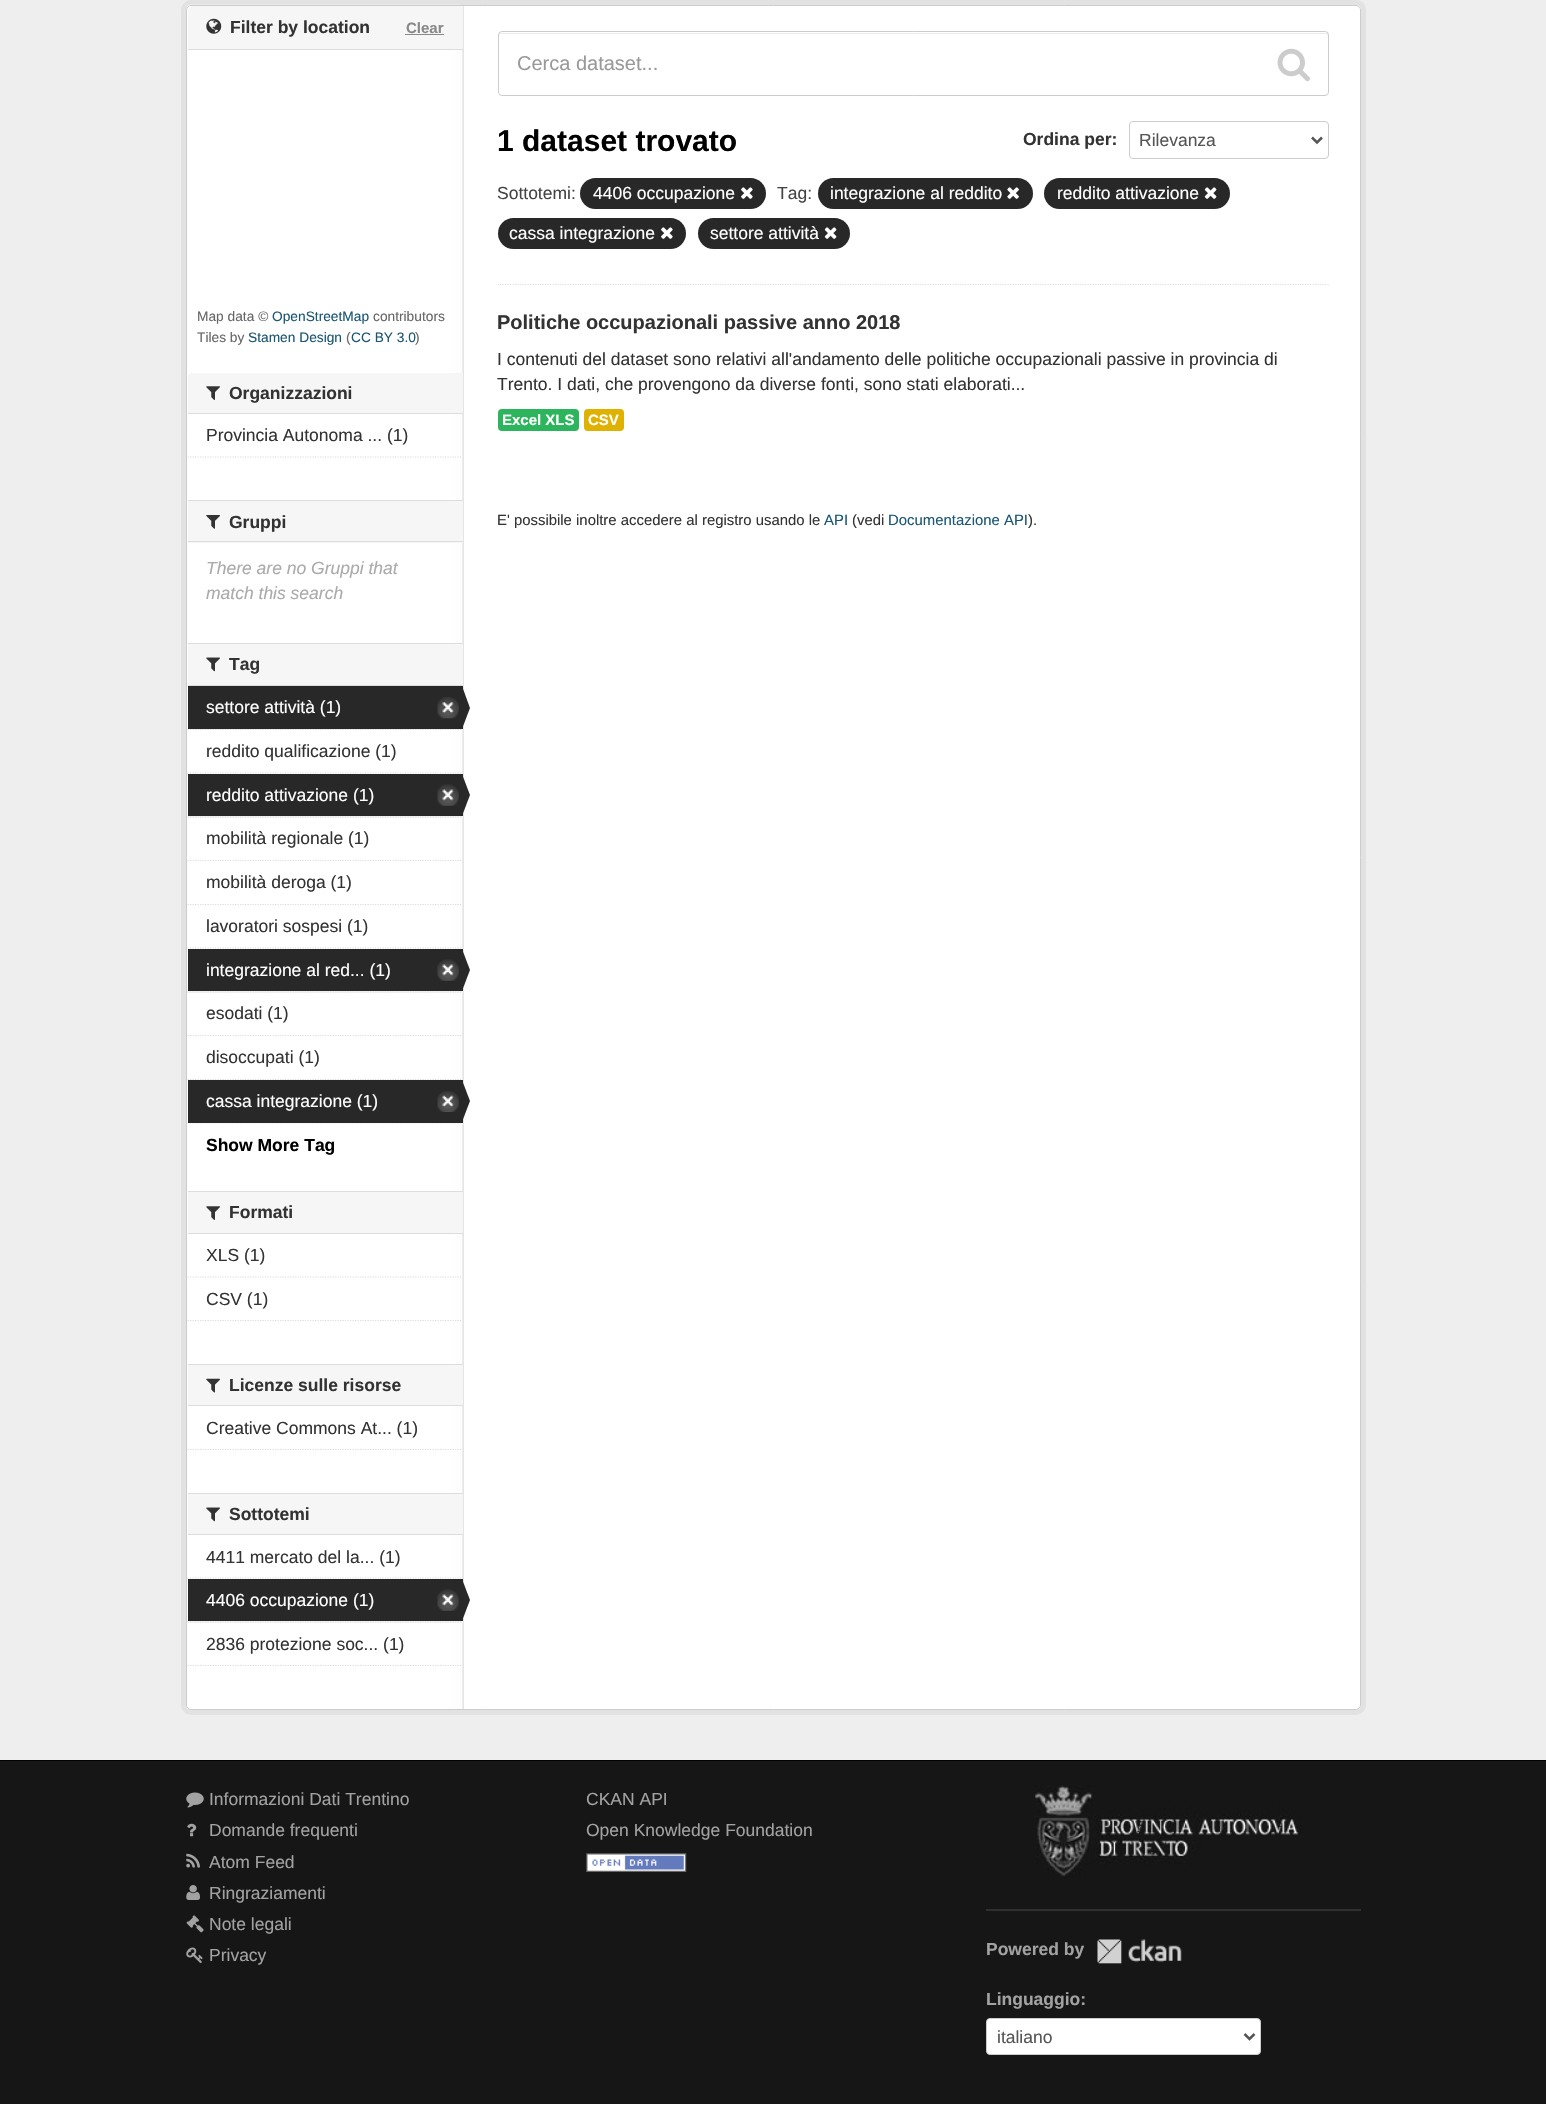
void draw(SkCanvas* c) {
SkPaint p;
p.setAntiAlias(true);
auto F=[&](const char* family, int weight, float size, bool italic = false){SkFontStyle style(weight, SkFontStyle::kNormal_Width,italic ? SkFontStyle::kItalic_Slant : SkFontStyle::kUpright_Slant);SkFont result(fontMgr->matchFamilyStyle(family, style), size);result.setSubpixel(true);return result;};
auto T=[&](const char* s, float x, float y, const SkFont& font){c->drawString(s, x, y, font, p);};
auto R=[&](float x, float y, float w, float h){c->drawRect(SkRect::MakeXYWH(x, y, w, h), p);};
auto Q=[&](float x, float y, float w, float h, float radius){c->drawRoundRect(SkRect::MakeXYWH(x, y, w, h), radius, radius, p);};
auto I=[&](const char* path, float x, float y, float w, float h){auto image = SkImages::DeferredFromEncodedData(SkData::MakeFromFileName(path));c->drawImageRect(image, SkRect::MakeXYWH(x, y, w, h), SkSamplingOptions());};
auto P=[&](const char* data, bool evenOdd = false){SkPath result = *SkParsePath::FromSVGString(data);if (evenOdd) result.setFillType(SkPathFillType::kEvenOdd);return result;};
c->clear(0xff161616);
p.setColor(0xffeeeeee);
R(0,0,1546,1760);
p.setStroke(true);
p.setStrokeWidth(5);
p.setColor(0xffe2e2e2);
c->drawRoundRect(SkRect::MakeXYWH(183.5,2.5,1180,1710),7.5,7.5,p);
p.setStroke(false);
p.setColor(0xffffffff);
Q(186,5,1175,1705,5);
I("1.png",188,4,276,1706);
p.setStroke(true);
p.setStrokeWidth(1);
p.setColor(0xffcccccc);
c->drawRoundRect(SkRect::MakeXYWH(186.5,5.5,1174,1704),4.5,4.5,p);
p.setStroke(false);
p.setColor(0xfff6f6f6);
c->drawPath(P("M192 6h271v44h-275v-40c0-2 2-4 4-4z"),p);
p.setColor(0xffdddddd);
R(188,49,275,1);
I("2.png",206,18,16,16);
auto f1 = F("Liberation Sans",700,17.5);
p.setColor(0xff333333);
T("Filter by location",230,33,f1);
auto f2 = F("Liberation Sans",700,15);
p.setColor(0xff888888);
T("Clear",406,33,f2);
R(405,34,39,1);
auto f3 = F("Liberation Sans",400,13.75);
p.setColor(0xff666666);
T("Map data ©",197,321,f3);
p.setColor(0xff1a5675);
T("OpenStreetMap",272,321,f3);
p.setColor(0xff666666);
T("contributors",373,321,f3);
T("Tiles by",197,342,f3);
p.setColor(0xff1a5675);
T("Stamen Design",248,342,f3);
p.setColor(0xff666666);
T("(",346,342,f3);
p.setColor(0xff1a5675);
T("CC BY 3.0",351,342,f3);
p.setColor(0xff666666);
T(")",415,342,f3);
p.setColor(0xfff6f6f6);
c->drawPath(P("M192 373h271v41h-275v-37c0-2 2-4 4-4z"),p);
p.setColor(0xffdddddd);
R(188,413,275,1);
I("3.png",206,386,14,14);
p.setColor(0xff333333);
T("Organizzazioni",229,399,f1);
auto f4 = F("Liberation Sans",400,17.5);
T("Provincia Autonoma ... (1)",206,441,f4);
p.setStroke(true);
p.setStrokeWidth(1.2);
p.setColor(0xffdddddd);
p.setPathEffect(SkDashPathEffect::Make({{1.25f,1.25f}}, 0));
c->drawPath(P("M187.5 457h275"),p);
p.setPathEffect(nullptr);
p.setStroke(false);
p.setColor(0xfff6f6f6);
R(188,501,275,42);
p.setColor(0xffdddddd);
R(188,500,275,1);
R(188,541,275,1);
I("4.png",206,515,14,14);
p.setColor(0xff333333);
T("Gruppi",229,528,f1);
auto f5 = F("Liberation Sans",400,17.5,true);
p.setColor(0xffaaaaaa);
T("There are no Gruppi that",206,574,f5);
T("match this search",206,599,f5);
p.setColor(0xfff6f6f6);
R(188,644,275,41);
p.setColor(0xffdddddd);
R(188,643,275,1);
R(188,685,275,1);
I("5.png",206,657,14,15);
p.setColor(0xff333333);
T("Tag",229,670,f1);
p.setColor(0xfff6f6f6);
R(188,729,275,1);
p.setStroke(true);
p.setColor(0xffdddddd);
p.setPathEffect(SkDashPathEffect::Make({{1.25f,1.25f}}, 0));
c->drawPath(P("M187.5 729.5h275"),p);
p.setPathEffect(nullptr);
p.setStroke(false);
p.setColor(0xff282828);
R(188,686,275,43);
p.setColor(0xffffffff);
T("settore attività (1)",206,713,f4);
I("6.png",437,697,22,22);
p.setColor(0xff282828);
c->drawPath(P("M462 729v-43l8 22z"),p);
p.setStroke(true);
p.setColor(0xffdddddd);
p.setPathEffect(SkDashPathEffect::Make({{1.25f,1.25f}}, 0));
c->drawPath(P("M187.5 773h275"),p);
p.setPathEffect(nullptr);
p.setStroke(false);
p.setColor(0xff333333);
T("reddito qualificazione (1)",206,757,f4);
p.setColor(0xfff6f6f6);
R(188,816,275,2);
p.setStroke(true);
p.setColor(0xffdddddd);
p.setPathEffect(SkDashPathEffect::Make({{1.25f,1.25f}}, 0));
c->drawPath(P("M187.5 817h275"),p);
p.setPathEffect(nullptr);
p.setStroke(false);
p.setColor(0xff282828);
R(188,774,275,42);
p.setColor(0xffffffff);
T("reddito attivazione (1)",206,801,f4);
I("7.png",437,784,22,22);
p.setColor(0xff282828);
c->drawPath(P("M462 816v-42l8 21z"),p);
p.setStroke(true);
p.setColor(0xffdddddd);
p.setPathEffect(SkDashPathEffect::Make({{1.25f,1.25f}}, 0));
c->drawPath(P("M187.5 860.5h275"),p);
p.setPathEffect(nullptr);
p.setStroke(false);
p.setColor(0xff333333);
T("mobilità regionale (1)",206,844,f4);
p.setStroke(true);
p.setColor(0xffdddddd);
p.setPathEffect(SkDashPathEffect::Make({{1.25f,1.25f}}, 0));
c->drawPath(P("M187.5 904.5h275"),p);
p.setPathEffect(nullptr);
p.setStroke(false);
p.setColor(0xff333333);
T("mobilità deroga (1)",206,888,f4);
p.setStroke(true);
p.setColor(0xffdddddd);
p.setPathEffect(SkDashPathEffect::Make({{1.25f,1.25f}}, 0));
c->drawPath(P("M187.5 948h275"),p);
p.setPathEffect(nullptr);
p.setStroke(false);
p.setColor(0xff333333);
T("lavoratori sospesi (1)",206,932,f4);
p.setColor(0xfff6f6f6);
R(188,991,275,2);
p.setStroke(true);
p.setColor(0xffdddddd);
p.setPathEffect(SkDashPathEffect::Make({{1.25f,1.25f}}, 0));
c->drawPath(P("M187.5 992h275"),p);
p.setPathEffect(nullptr);
p.setStroke(false);
p.setColor(0xff282828);
R(188,949,275,42);
p.setColor(0xffffffff);
T("integrazione al red... (1)",206,976,f4);
I("7.png",437,959,22,22);
p.setColor(0xff282828);
c->drawPath(P("M462 991v-42l8 21z"),p);
p.setStroke(true);
p.setColor(0xffdddddd);
p.setPathEffect(SkDashPathEffect::Make({{1.25f,1.25f}}, 0));
c->drawPath(P("M187.5 1035.5h275"),p);
p.setPathEffect(nullptr);
p.setStroke(false);
p.setColor(0xff333333);
T("esodati (1)",206,1019,f4);
p.setStroke(true);
p.setColor(0xffdddddd);
p.setPathEffect(SkDashPathEffect::Make({{1.25f,1.25f}}, 0));
c->drawPath(P("M187.5 1079.5h275"),p);
p.setPathEffect(nullptr);
p.setStroke(false);
p.setColor(0xff333333);
T("disoccupati (1)",206,1063,f4);
p.setStroke(true);
p.setColor(0xffdddddd);
p.setPathEffect(SkDashPathEffect::Make({{1.25f,1.25f}}, 0));
c->drawPath(P("M187.5 1123h275"),p);
p.setPathEffect(nullptr);
p.setStroke(false);
p.setColor(0xff282828);
R(188,1080,275,43);
p.setColor(0xffffffff);
T("cassa integrazione (1)",206,1107,f4);
I("8.png",437,1091,22,21);
p.setColor(0xff282828);
c->drawPath(P("M462 1122v-42l8 21z"),p);
p.setColor(0xff000000);
T("Show More Tag",206,1151,f1);
p.setColor(0xfff6f6f6);
R(188,1192,275,41);
p.setColor(0xffdddddd);
R(188,1191,275,1);
R(188,1233,275,1);
I("3.png",206,1206,14,14);
p.setColor(0xff333333);
T("Formati",229,1218,f1);
p.setStroke(true);
p.setColor(0xffdddddd);
p.setPathEffect(SkDashPathEffect::Make({{1.25f,1.25f}}, 0));
c->drawPath(P("M187.5 1277h275"),p);
p.setPathEffect(nullptr);
p.setStroke(false);
p.setColor(0xff333333);
T("XLS (1)",206,1261,f4);
T("CSV (1)",206,1305,f4);
p.setStroke(true);
p.setColor(0xffdddddd);
p.setPathEffect(SkDashPathEffect::Make({{1.25f,1.25f}}, 0));
c->drawPath(P("M187.5 1320.5h275"),p);
p.setPathEffect(nullptr);
p.setStroke(false);
p.setColor(0xfff6f6f6);
R(188,1365,275,40);
p.setColor(0xffdddddd);
R(188,1364,275,1);
R(188,1405,275,1);
I("9.png",206,1378,14,15);
p.setColor(0xff333333);
T("Licenze sulle risorse",229,1391,f1);
T("Creative Commons At... (1)",206,1434,f4);
p.setStroke(true);
p.setColor(0xffdddddd);
p.setPathEffect(SkDashPathEffect::Make({{1.25f,1.25f}}, 0));
c->drawPath(P("M187.5 1449.5h275"),p);
p.setPathEffect(nullptr);
p.setStroke(false);
p.setColor(0xfff6f6f6);
R(188,1494,275,40);
p.setColor(0xffdddddd);
R(188,1493,275,1);
R(188,1534,275,1);
I("5.png",206,1507,14,15);
p.setColor(0xff333333);
T("Sottotemi",229,1520,f1);
p.setStroke(true);
p.setColor(0xffdddddd);
p.setPathEffect(SkDashPathEffect::Make({{1.25f,1.25f}}, 0));
c->drawPath(P("M187.5 1578h275"),p);
p.setPathEffect(nullptr);
p.setStroke(false);
p.setColor(0xff333333);
T("4411 mercato del la... (1)",206,1563,f4);
p.setColor(0xfff6f6f6);
R(188,1621,275,2);
p.setStroke(true);
p.setColor(0xffdddddd);
p.setPathEffect(SkDashPathEffect::Make({{1.25f,1.25f}}, 0));
c->drawPath(P("M187.5 1622h275"),p);
p.setPathEffect(nullptr);
p.setStroke(false);
p.setColor(0xff282828);
R(188,1579,275,42);
p.setColor(0xffffffff);
T("4406 occupazione (1)",206,1606,f4);
I("10.png",437,1589,22,22);
p.setColor(0xff282828);
c->drawPath(P("M462 1621v-42l8 21z"),p);
p.setColor(0xff333333);
T("2836 protezione soc... (1)",206,1650,f4);
p.setStroke(true);
p.setColor(0xffdddddd);
p.setPathEffect(SkDashPathEffect::Make({{1.25f,1.25f}}, 0));
c->drawPath(P("M187.5 1665.5h275"),p);
p.setPathEffect(nullptr);
p.setPathEffect(SkDashPathEffect::Make({{1.25f,1.25f}}, 0));
c->drawPath(P("M497.5 284.5h831.5"),p);
p.setPathEffect(nullptr);
p.setStroke(false);
p.setColor(0xffececec);
c->drawPath(P("M501 34h824c1 0 3 1 3 2c0-2-1-3-2-3h-824c-2 0-3 1-3 3c0-1 1-2 2-2z"),p);
p.setStroke(true);
p.setStrokeWidth(1);
p.setColor(0xffcccccc);
c->drawRoundRect(SkRect::MakeXYWH(498.5,31.5,830,64),3.5,3.5,p);
auto f6 = F("Liberation Sans",400,20);
p.setStroke(false);
p.setColor(0xff999999);
T("Cerca dataset...",517,70,f6);
I("11.png",1277,48,33,34);
auto f7 = F("Liberation Sans",700,30);
p.setColor(0xff000000);
T("1 dataset trovato",497,151,f7);
p.setColor(0xff333333);
T("Ordina per:",1023,145,f1);
p.setStroke(true);
p.setColor(0xffcccccc);
c->drawRoundRect(SkRect::MakeXYWH(1129.5,121.5,199,37),3.5,3.5,p);
p.setStrokeWidth(2.5);
p.setColor(0xff555555);
c->drawPath(P("M1312 137.5l5 5l5-5"),p);
p.setStroke(false);
T("Rilevanza",1139,146,f4);
p.setColor(0xff444444);
T("Sottotemi:",497,199,f4);
p.setColor(0xff282828);
Q(580,178,186,31,15.5);
p.setColor(0xffffffff);
T("4406 occupazione",593,199,f4);
I("12.png",741,187,12,12);
p.setColor(0xff444444);
T("Tag:",777,199,f4);
p.setColor(0xff282828);
Q(818,178,215,31,15.5);
p.setColor(0xffffffff);
T("integrazione al reddito",830,199,f4);
I("13.png",1007,187,12,12);
p.setColor(0xff282828);
Q(1044,178,186,31,15.5);
p.setColor(0xffffffff);
T("reddito attivazione",1057,199,f4);
I("14.png",1204,187,13,12);
p.setColor(0xff282828);
Q(498,218,188,31,15.5);
p.setColor(0xffffffff);
T("cassa integrazione",509,239,f4);
I("12.png",661,227,12,12);
p.setColor(0xff282828);
Q(698,218,152,31,15.5);
p.setColor(0xffffffff);
T("settore attività",710,239,f4);
I("14.png",824,227,13,12);
auto f8 = F("Liberation Sans",700,20);
p.setColor(0xff333333);
T("Politiche occupazionali passive anno 2018",497,329,f8);
T("I contenuti del dataset sono relativi all'andamento delle politiche occupazionali passive in provincia di",497,365,f4);
T("Trento. I dati, che provengono da diverse fonti, sono stati elaborati...",497,390,f4);
p.setColor(0xff2db55d);
Q(498,409,81,22,4);
p.setColor(0xffffffff);
T("Excel XLS",502,425,f2);
p.setColor(0xffdfb100);
Q(584,409,40,22,4);
p.setColor(0xffffffff);
T("CSV",588,425,f2);
auto f9 = F("Liberation Sans",400,14.9);
p.setColor(0xff333333);
T("E' possibile inoltre accedere al registro usando le",497,525,f9);
p.setColor(0xff1a5675);
T("API",824,525,f9);
p.setColor(0xff333333);
T("(vedi",852,525,f9);
p.setColor(0xff1a5675);
T("Documentazione API",888,525,f9);
p.setColor(0xff333333);
T(").",1028,525,f9);
p.setColor(0xff000000);
R(0,1760,1546,1);
I("15.png",186,1792,18,16);
p.setColor(0xffa2a2a2);
T("Informazioni Dati Trentino",209,1805,f4);
I("16.png",187,1823,10,14);
T("Domande frequenti",209,1836,f4);
I("17.png",186,1853,14,15);
T("Atom Feed",209,1868,f4);
I("18.png",186,1885,14,15);
T("Ringraziamenti",209,1899,f4);
I("19.png",186,1915,18,18);
T("Note legali",209,1930,f4);
I("20.png",186,1947,17,16);
T("Privacy",209,1961,f4);
T("CKAN API",586,1805,f4);
T("Open Knowledge Foundation",586,1836,f4);
I("21.png",586,1853,101,19);
I("22.png",1035,1785,268,93);
p.setColor(0xff303030);
R(986,1909,375,2);
p.setColor(0xffa2a2a2);
T("Powered by",986,1955,f1);
I("23.png",1097,1939,85,25);
T("Linguaggio:",986,2005,f1);
p.setColor(0xffffffff);
c->drawRoundRect(SkRect::MakeXYWH(986.5,2018.5,274,36),3.5,3.5,p);
p.setStroke(true);
p.setStrokeWidth(1);
p.setColor(0xffcccccc);
c->drawRoundRect(SkRect::MakeXYWH(986.5,2018.5,274,36),3.5,3.5,p);
p.setStrokeWidth(2.5);
p.setColor(0xff555555);
c->drawPath(P("M1244.5 2034l5 5l5-5"),p);
p.setStroke(false);
T("italiano",997,2043,f4);
}
